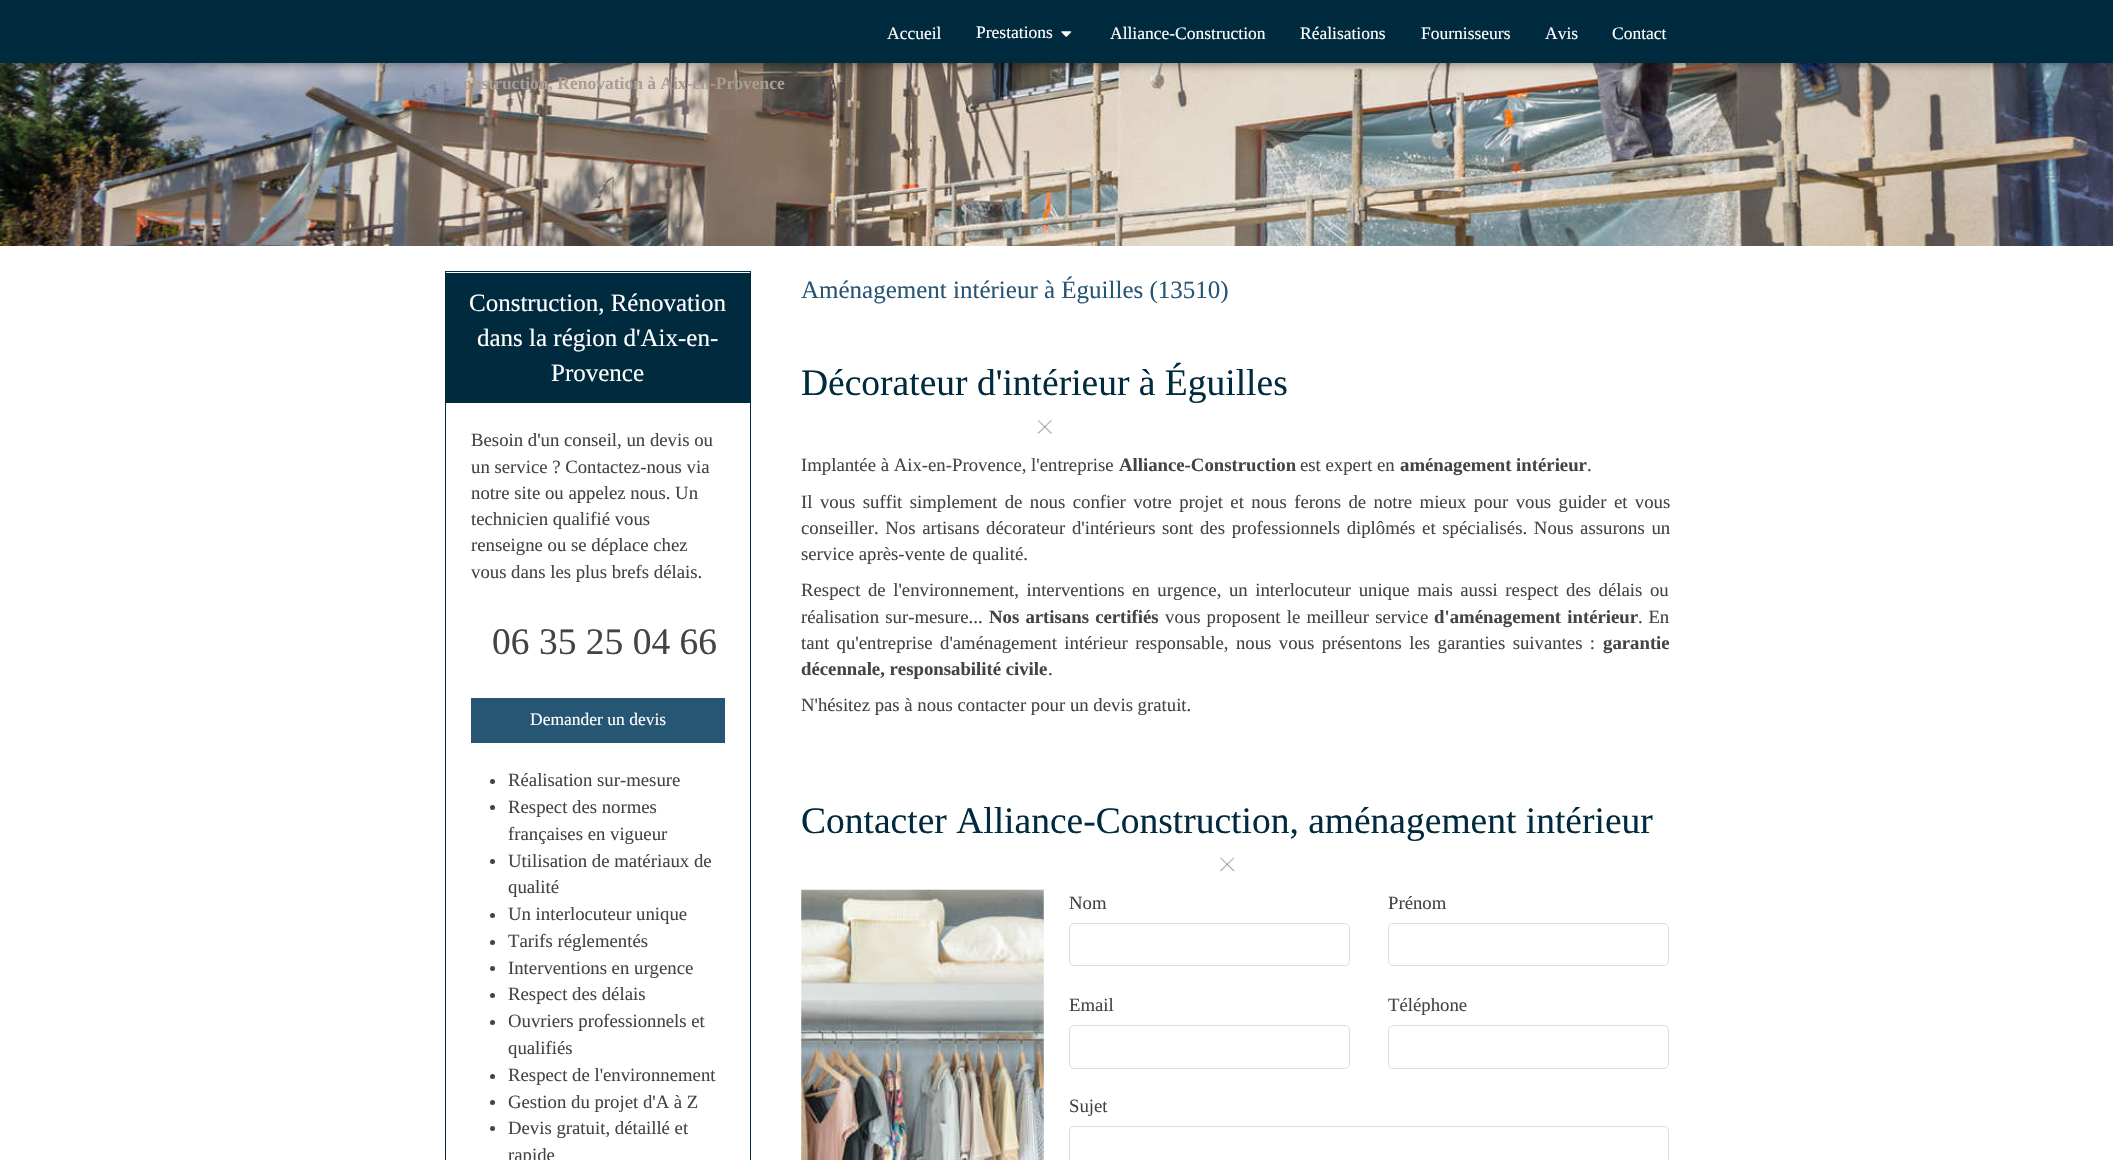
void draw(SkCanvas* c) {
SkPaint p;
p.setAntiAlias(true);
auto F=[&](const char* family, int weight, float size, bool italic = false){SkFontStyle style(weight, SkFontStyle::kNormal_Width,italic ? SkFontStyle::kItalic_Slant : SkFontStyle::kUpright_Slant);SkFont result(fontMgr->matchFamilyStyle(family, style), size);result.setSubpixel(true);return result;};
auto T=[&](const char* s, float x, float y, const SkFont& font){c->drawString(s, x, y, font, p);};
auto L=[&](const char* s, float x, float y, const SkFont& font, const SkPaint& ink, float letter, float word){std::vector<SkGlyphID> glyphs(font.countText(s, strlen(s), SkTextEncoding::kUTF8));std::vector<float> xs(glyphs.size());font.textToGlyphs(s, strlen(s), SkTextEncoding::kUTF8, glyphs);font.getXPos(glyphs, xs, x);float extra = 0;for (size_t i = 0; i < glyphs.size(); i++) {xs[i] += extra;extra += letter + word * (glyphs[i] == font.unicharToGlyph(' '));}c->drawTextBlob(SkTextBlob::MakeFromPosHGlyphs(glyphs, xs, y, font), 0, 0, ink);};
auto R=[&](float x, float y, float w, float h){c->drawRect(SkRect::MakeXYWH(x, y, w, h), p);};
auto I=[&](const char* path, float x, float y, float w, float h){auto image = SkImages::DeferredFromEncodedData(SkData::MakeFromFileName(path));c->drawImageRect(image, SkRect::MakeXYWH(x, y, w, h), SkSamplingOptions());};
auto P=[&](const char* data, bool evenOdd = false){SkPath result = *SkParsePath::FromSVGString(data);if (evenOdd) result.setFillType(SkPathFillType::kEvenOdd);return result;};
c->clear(0xffffffff);
I("2.png",0,63,2113,183);
p.setColor(0x80000000);
p.setMaskFilter(SkMaskFilter::MakeBlur(kNormal_SkBlurStyle, 5));
c->drawRect(SkRect::MakeXYWH(0,0,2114,63),p);
p.setMaskFilter(nullptr);
p.setColor(0xff002a3d);
R(0,0,2113,63);
auto f1 = F("Liberation Serif",400,17.5);
p.setColor(0xffffffff);
T("Accueil",887,39,f1);
T("Prestations",976,38,f1);
I("1.png",1061,31,11,6);
T("Alliance-Construction",1110,39,f1);
T("Réalisations",1300,39,f1);
T("Fournisseurs",1421,39,f1);
T("Avis",1545,39,f1);
T("Contact",1612,39,f1);
auto f2 = F("Liberation Serif",700,17.5);
p.setColor(0xffa89d94);
T("onstruction, Rénovation à Aix-en-Provence",463,89,f2);
p.setStroke(true);
p.setStrokeWidth(1);
p.setColor(0xff002a3d);
c->drawRect(SkRect::MakeXYWH(445.5,271.5,305,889),p);
p.setStroke(false);
R(446,273,304,130);
auto f3 = F("Liberation Serif",400,25);
p.setColor(0xffffffff);
T("Construction, Rénovation",469,311,f3);
T("dans la région d'Aix-en-",477,346,f3);
T("Provence",551,381,f3);
auto f4 = F("Liberation Serif",400,18.75);
p.setColor(0xff444444);
T("Besoin d'un conseil, un devis ou",471,446,f4);
T("un service ? Contactez-nous via",471,473,f4);
T("notre site ou appelez nous. Un",471,499,f4);
T("technicien qualifié vous",471,525,f4);
T("renseigne ou se déplace chez",471,551,f4);
T("vous dans les plus brefs délais.",471,578,f4);
auto f5 = F("Liberation Serif",400,37.5);
T("06 35 25 04 66",492,654,f5);
p.setColor(0xff275574);
R(471,698,254,45);
p.setColor(0xffffffff);
T("Demander un devis",530,725,f1);
p.setColor(0xff444444);
c->drawCircle(492.5,781.5,2.5,p);
T("Réalisation sur-mesure",508,786,f4);
c->drawCircle(492.5,807.5,2.5,p);
T("Respect des normes",508,813,f4);
T("françaises en vigueur",508,840,f4);
c->drawCircle(492.5,861.5,2.5,p);
T("Utilisation de matériaux de",508,867,f4);
T("qualité",508,893,f4);
c->drawCircle(492.5,915.5,2.5,p);
T("Un interlocuteur unique",508,920,f4);
c->drawCircle(492.5,942.5,2.5,p);
T("Tarifs réglementés",508,947,f4);
c->drawCircle(492.5,968.5,2.5,p);
T("Interventions en urgence",508,974,f4);
c->drawCircle(492.5,995.5,2.5,p);
T("Respect des délais",508,1000,f4);
c->drawCircle(492.5,1022.5,2.5,p);
T("Ouvriers professionnels et",508,1027,f4);
T("qualifiés",508,1054,f4);
c->drawCircle(492.5,1076.5,2.5,p);
T("Respect de l'environnement",508,1081,f4);
c->drawCircle(492.5,1102.5,2.5,p);
T("Gestion du projet d'A à Z",508,1108,f4);
c->drawCircle(492.5,1128.5,2.5,p);
T("Devis gratuit, détaillé et",508,1134,f4);
T("rapide",508,1161,f4);
p.setColor(0xff275574);
T("Aménagement intérieur à Éguilles (13510)",801,298,f3);
p.setColor(0xff002a3d);
T("Décorateur d'intérieur à Éguilles",801,395,f5);
p.setColor(0xffb2b2b2);
c->drawPath(P("M1038.5 420l13.5 13l-1 1l-13.5-13.5z"),p);
p.setColor(0x80646464);
c->drawPath(P("M1037.5 433l13.5-13l1 .5l-13.5 13.5z"),p);
p.setColor(0xff444444);
T("Implantée à Aix-en-Provence, l'entreprise",801,471,f4);
auto f6 = F("Liberation Serif",700,18.75);
T("Alliance-Construction",1119,471,f6);
T("est expert en",1300,471,f4);
T("aménagement intérieur",1400,471,f6);
T(".",1587,471,f4);
L("Il vous suffit simplement de nous confier votre projet et nous ferons de notre mieux pour vous guider et vous",801,508,f4,p,0,2.75);
L("conseiller. Nos artisans décorateur d'intérieurs",801,534,f4,p,0,2);
L("sont des professionnels diplômés et spécialisés. Nous assurons un",1162,534,f4,p,0,2);
T("service après-vente de qualité.",801,560,f4);
L("Respect de l'environnement, interventions en urgence, un interlocuteur unique mais aussi respect des délais ou",801,596,f4,p,0,2.9);
L("réalisation sur-mesure...",801,623,f4,p,0,1.5);
L("Nos artisans certifiés",989,623,f6,p,0,1.5);
L("vous proposent le meilleur service",1165,623,f4,p,0,1.5);
L("d'aménagement intérieur",1434,623,f6,p,0,1.5);
L(". En",1638,623,f4,p,0,1);
L("tant qu'entreprise d'aménagement intérieur responsable, nous vous présentons les garanties suivantes :",801,649,f4,p,0,2.75);
T("garantie",1603,649,f6);
T("décennale, responsabilité civile",801,675,f6);
T(".",1048,675,f4);
T("N'hésitez pas à nous contacter pour un devis gratuit.",801,711,f4);
p.setColor(0xff002a3d);
T("Contacter Alliance-Construction, aménagement intérieur",801,833,f5);
p.setColor(0xffb2b2b2);
c->drawPath(P("M1221 857.5l13.5 13l-1 1l-13.5-13.5z"),p);
p.setColor(0x80646464);
c->drawPath(P("M1220 870.5l13.5-13l1 .5l-13.5 13.5z"),p);
I("3.png",801,889,243,271);
p.setColor(0xff444444);
T("Nom",1069,909,f4);
p.setStroke(true);
p.setColor(0xffdddddd);
c->drawRoundRect(SkRect::MakeXYWH(1069.5,923.5,280,42),4.5,4.5,p);
p.setStroke(false);
p.setColor(0xff444444);
T("Prénom",1388,909,f4);
p.setStroke(true);
p.setColor(0xffdddddd);
c->drawRoundRect(SkRect::MakeXYWH(1388.5,923.5,280,42),4.5,4.5,p);
p.setStroke(false);
p.setColor(0xff444444);
T("Email",1069,1011,f4);
p.setStroke(true);
p.setColor(0xffdddddd);
c->drawRoundRect(SkRect::MakeXYWH(1069.5,1025.5,280,43),4.5,4.5,p);
p.setStroke(false);
p.setColor(0xff444444);
T("Téléphone",1388,1011,f4);
p.setStroke(true);
p.setColor(0xffdddddd);
c->drawRoundRect(SkRect::MakeXYWH(1388.5,1025.5,280,43),4.5,4.5,p);
p.setStroke(false);
p.setColor(0xff444444);
T("Sujet",1069,1112,f4);
p.setStroke(true);
p.setColor(0xffdddddd);
c->drawRoundRect(SkRect::MakeXYWH(1069.5,1126.5,599,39),4.5,4.5,p);
}
